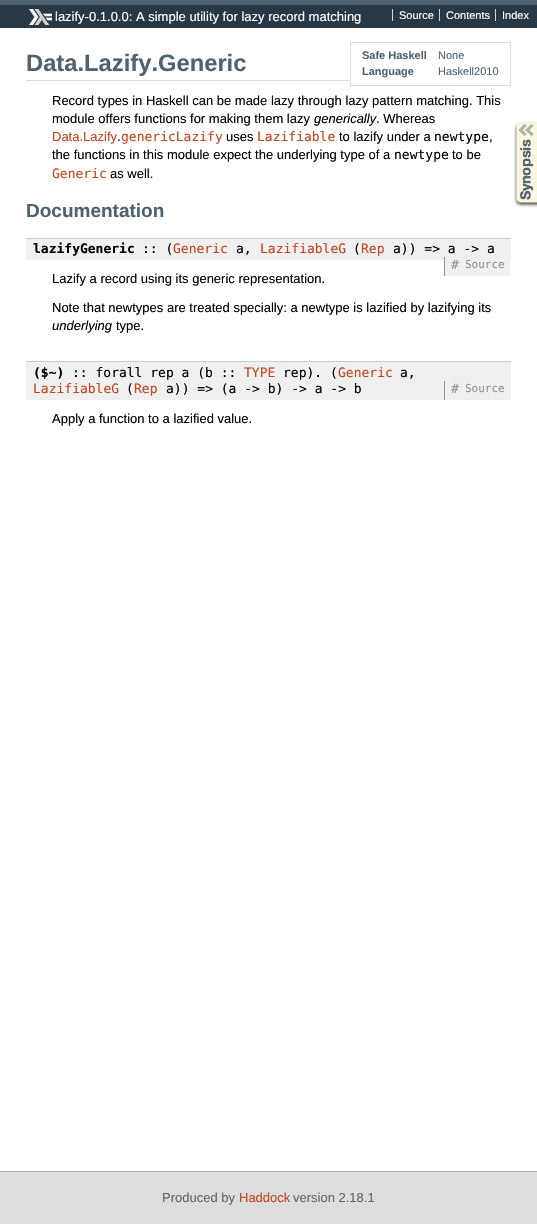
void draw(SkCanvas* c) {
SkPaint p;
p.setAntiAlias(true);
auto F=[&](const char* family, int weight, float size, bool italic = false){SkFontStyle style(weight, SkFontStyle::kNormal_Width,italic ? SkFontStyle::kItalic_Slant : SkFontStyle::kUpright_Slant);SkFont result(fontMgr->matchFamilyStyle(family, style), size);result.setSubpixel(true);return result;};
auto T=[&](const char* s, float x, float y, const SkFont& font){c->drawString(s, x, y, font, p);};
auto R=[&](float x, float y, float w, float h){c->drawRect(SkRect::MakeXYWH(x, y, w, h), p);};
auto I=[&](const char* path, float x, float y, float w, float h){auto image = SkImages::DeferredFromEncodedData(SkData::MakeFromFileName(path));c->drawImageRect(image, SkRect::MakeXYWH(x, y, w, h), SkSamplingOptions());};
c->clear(0xffffffff);
p.setColor(0xff293845);
R(0,5,537,23);
p.setColor(0xff4e6272);
R(0,0,537,5);
I("1.png",29,9,23,16);
auto f1 = F("Liberation Sans",400,13);
p.setColor(0xffffffff);
T("lazify-0.1.0.0: A simple utility for lazy record matching",55,21,f1);
auto f2 = F("Liberation Sans",400,11);
T("Source",399,19,f2);
p.setColor(0xffd5d5d5);
R(392,9,1,12);
p.setColor(0xffffffff);
T("Contents",446,19,f2);
p.setColor(0xffd5d5d5);
R(439,9,1,12);
p.setColor(0xffffffff);
T("Index",502,19,f2);
p.setColor(0xffd5d5d5);
R(495,9,1,12);
p.setColor(0xffdddddd);
R(26,80,324,1);
auto f3 = F("Liberation Sans",700,23.75);
p.setColor(0xff4e6272);
T("Data.Lazify.Generic",26,71,f3);
p.setStroke(true);
p.setStrokeWidth(1);
p.setColor(0xffdddddd);
c->drawRect(SkRect::MakeXYWH(350.5,42.5,160,43),p);
auto f4 = F("Liberation Sans",700,11);
p.setStroke(false);
p.setColor(0xff4e6272);
T("Safe Haskell",362,59,f4);
T("None",438,59,f2);
T("Language",362,75,f4);
T("Haskell2010",438,75,f2);
p.setColor(0xff000000);
T("Record types in Haskell can be made lazy through lazy pattern matching. This",52,105,f1);
T("module offers functions for making them lazy",52,123,f1);
auto f5 = F("Liberation Sans",400,13,true);
T("generically",314,123,f5);
T(". Whereas",376,123,f1);
p.setColor(0xffc4451d);
T("Data.Lazify",52,141,f1);
p.setColor(0xff000000);
T(".",117,141,f1);
auto f6 = F("DejaVu Sans Mono",400,13);
p.setColor(0xffc4451d);
T("genericLazify",121,141,f6);
p.setColor(0xff000000);
T("uses",226,141,f1);
p.setColor(0xffc4451d);
T("Lazifiable",257,141,f6);
p.setColor(0xff000000);
T("to lazify under a",339,141,f1);
T("newtype",434,141,f6);
T(",",489,141,f1);
T("the functions in this module expect the underlying type of a",52,159,f1);
T("newtype",394,159,f6);
T("to be",452,159,f1);
p.setColor(0xffc4451d);
T("Generic",52,178,f6);
p.setColor(0xff000000);
T("as well.",110,178,f1);
I("2.png",514,122,23,86);
auto f7 = F("Liberation Sans",700,19);
p.setColor(0xff4e6272);
T("Documentation",26,217,f7);
p.setColor(0xfff0f0f0);
R(26,239,485,21);
p.setColor(0xffcccccc);
R(26,238,485,1);
auto f8 = F("DejaVu Sans Mono",700,13);
p.setColor(0xff000000);
T("lazifyGeneric",33,253,f8);
T(":: (",142,253,f6);
p.setColor(0xffc4451d);
T("Generic",173,253,f6);
p.setColor(0xff000000);
T("a,",236,253,f6);
p.setColor(0xffc4451d);
T("LazifiableG",260,253,f6);
p.setColor(0xff000000);
T("(",353,253,f6);
p.setColor(0xffc4451d);
T("Rep",361,253,f6);
p.setColor(0xff000000);
T("a)) => a -> a",393,253,f6);
p.setColor(0xfff0f0f0);
R(466,260,44,16);
auto f9 = F("DejaVu Sans Mono",400,11);
p.setColor(0xff919191);
T("Source",465,268,f9);
p.setColor(0xfff0f0f0);
R(445,260,21,16);
p.setColor(0xff919191);
R(444,257,1,19);
T("#",451,269,f6);
p.setColor(0xff000000);
T("Lazify a record using its generic representation.",52,283,f1);
T("Note that newtypes are treated specially: a newtype is lazified by lazifying its",52,312,f1);
T("underlying",52,330,f5);
T("type.",116,330,f1);
p.setColor(0xfff0f0f0);
R(26,362,485,38);
p.setColor(0xffcccccc);
R(26,361,485,1);
p.setColor(0xff000000);
T("($~)",33,377,f8);
T(":: forall rep a (b ::",72,377,f6);
p.setColor(0xffc4451d);
T("TYPE",244,377,f6);
p.setColor(0xff000000);
T("rep). (",283,377,f6);
p.setColor(0xffc4451d);
T("Generic",338,377,f6);
p.setColor(0xff000000);
T("a,",400,377,f6);
p.setColor(0xffc4451d);
T("LazifiableG",33,393,f6);
p.setColor(0xff000000);
T("(",126,393,f6);
p.setColor(0xffc4451d);
T("Rep",134,393,f6);
p.setColor(0xff000000);
T("a)) => (a -> b) -> a -> b",166,393,f6);
p.setColor(0xff919191);
T("Source",465,392,f9);
p.setColor(0xfff0f0f0);
R(465,384,1,8);
p.setColor(0xff919191);
R(444,381,1,19);
T("#",451,393,f6);
p.setColor(0xff000000);
T("Apply a function to a lazified value.",52,423,f1);
p.setColor(0xffdddddd);
R(0,1172,537,52);
p.setColor(0xffaaaaaa);
R(0,1171,537,1);
p.setColor(0xff666666);
T("Produced by",162,1202,f1);
p.setColor(0xffc4451d);
T("Haddock",239,1202,f1);
p.setColor(0xff666666);
T("version 2.18.1",293,1202,f1);
}
